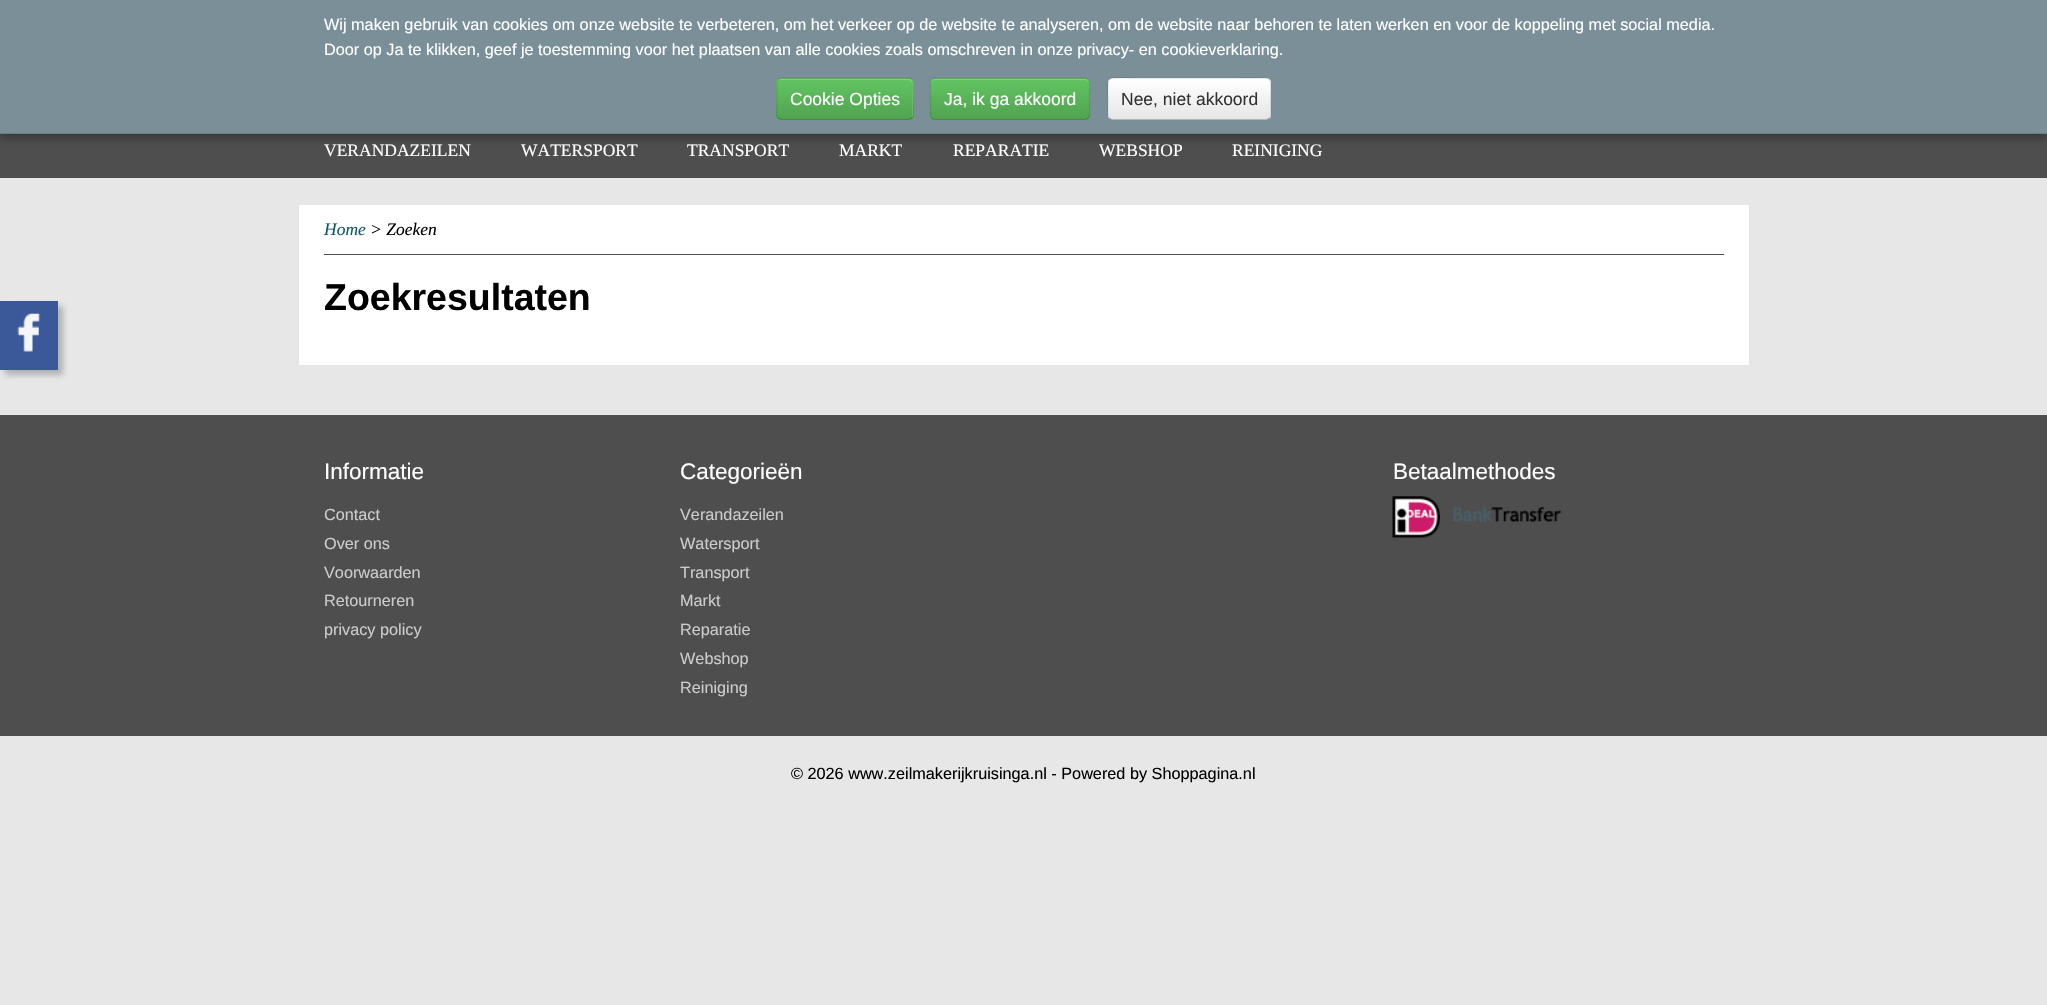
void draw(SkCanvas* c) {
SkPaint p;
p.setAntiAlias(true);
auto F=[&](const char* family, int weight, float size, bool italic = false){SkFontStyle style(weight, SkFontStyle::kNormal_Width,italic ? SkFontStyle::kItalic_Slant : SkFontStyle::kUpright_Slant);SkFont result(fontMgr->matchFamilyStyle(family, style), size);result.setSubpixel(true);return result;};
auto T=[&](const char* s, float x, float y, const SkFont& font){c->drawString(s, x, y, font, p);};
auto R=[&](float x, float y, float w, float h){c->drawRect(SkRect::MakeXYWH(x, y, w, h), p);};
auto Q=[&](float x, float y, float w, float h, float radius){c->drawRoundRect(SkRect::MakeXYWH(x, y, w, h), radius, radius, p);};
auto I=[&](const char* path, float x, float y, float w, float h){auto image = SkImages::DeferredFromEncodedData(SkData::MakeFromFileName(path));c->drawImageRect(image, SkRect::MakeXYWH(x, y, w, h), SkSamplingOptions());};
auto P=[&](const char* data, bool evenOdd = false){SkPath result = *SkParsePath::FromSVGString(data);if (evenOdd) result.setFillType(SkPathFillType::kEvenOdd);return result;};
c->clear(0xffe8e7e7);
p.setColor(0xff4f4e4e);
R(0,134,2047,44);
p.setColor(0x4d000000);
p.setMaskFilter(SkMaskFilter::MakeBlur(kNormal_SkBlurStyle, 4.5));
c->drawRect(SkRect::MakeXYWH(0,4,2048,134),p);
p.setMaskFilter(nullptr);
p.setColor(0xff7a8f98);
R(0,0,2047,133);
p.setColor(0xff697e87);
R(0,133,2047,1);
auto f1 = F("Liberation Sans",400,16.25);
p.setColor(0xffffffff);
T("Wij maken gebruik van cookies om onze website te verbeteren, om het verkeer op de website te analyseren, om de website naar behoren te laten werken en voor de koppeling met social media.",324,30,f1);
T("Door op Ja te klikken, geef je toestemming voor het plaatsen van alle cookies zoals omschreven in onze privacy- en cookieverklaring.",324,55,f1);
p.setColor(0xff5bb75b);
Q(776,78,138,42,5);
c->save();
c->clipPath(P("M781 78h128c3 0 5 2 5 5v32c0 3-2 5-5 5h-128c-3 0-5-2-5-5v-32c0-3 2-5 5-5z"),true);
{
const SkColor colors[] = {0xff62c462,0xff51a351};
const float stops[] = {0,1};
const SkPoint ends[] = {{845,79}, {845,119}};
p.setShader(SkGradientShader::MakeLinear(ends, colors, stops, 2, SkTileMode::kClamp));
p.setAlpha(255);
}
R(776,79,138,40);
c->restore();
p.setShader(nullptr);
p.setColor(0x33ffffff);
c->drawPath(P("M781 80h128c5 0 3 13 3 15v23c0-1 1-2 1-3v-32c0-2-2-4-4-4h-127c-2 0-4 2-4 4v1c0-2 1-4 3-4z"),p);
p.setStroke(true);
p.setStrokeWidth(1.2);
p.setColor(0x40000000);
c->drawPath(P("M912 118l-3 1.5h-106.5h-21.5l-3-1.5"),p);
p.setColor(0x1a000000);
c->drawPath(P("M778 118c-2.5-2.5-1-11-1-14v-16c0-3.5-1-10 4-10h128c5 0 4 6.5 4 10v16c0 3 1.5 11.5-1 14"),p);
auto f2 = F("Liberation Sans",400,17.5);
p.setStroke(false);
p.setColor(0xffffffff);
T("Cookie Opties",790,105,f2);
p.setColor(0xff5bb75b);
Q(930,78,160,42,5);
c->save();
c->clipPath(P("M935 78h150c3 0 5 2 5 5v32c0 3-2 5-5 5h-150c-3 0-5-2-5-5v-32c0-3 2-5 5-5z"),true);
{
const SkColor colors[] = {0xff62c462,0xff51a351};
const float stops[] = {0,1};
const SkPoint ends[] = {{1010,79}, {1010,119}};
p.setShader(SkGradientShader::MakeLinear(ends, colors, stops, 2, SkTileMode::kClamp));
p.setAlpha(255);
}
R(930,79,160,40);
c->restore();
p.setShader(nullptr);
p.setColor(0xff81d081);
c->drawPath(P("M935 80h150c2 0 4 2 4 4c0-2-1-4-3-5h-152c-2 1-3 3-3 5c0-2 2-4 4-4z"),p);
p.setStroke(true);
p.setColor(0x40000000);
c->drawPath(P("M1088 118c-.5 1-2 1.5-3 1.5h-150c-1 0-2.5-.5-3-1.5"),p);
p.setColor(0x1a000000);
c->drawPath(P("M932 118c-1-.5-1.5-2-1.5-3v-32.5c0-1 .5-2.5 1.5-3c.5-1 2-1.5 3-1.5h150c1 0 2.5 .5 3 1.5c1 .5 1.5 2 1.5 3v32.5c0 1-.5 2.5-1.5 3"),p);
p.setStroke(false);
p.setColor(0xffffffff);
T("Ja, ik ga akkoord",944,105,f2);
p.setColor(0xfff5f5f5);
Q(1108,78,163,42,5);
c->save();
c->clipPath(P("M1113 78h153c3 0 5 2 5 5v32c0 3-2 5-5 5h-153c-3 0-5-2-5-5v-32c0-3 2-5 5-5z"),true);
{
const SkColor colors[] = {0xffffffff,0xffe6e6e6};
const float stops[] = {0,1};
const SkPoint ends[] = {{1189,79}, {1189,119}};
p.setShader(SkGradientShader::MakeLinear(ends, colors, stops, 2, SkTileMode::kClamp));
p.setAlpha(255);
}
R(1108,79,163,40);
c->restore();
p.setStroke(true);
p.setShader(nullptr);
p.setColor(0x40000000);
c->drawPath(P("M1269.5 118c-1 1-2 1.5-3.5 1.5h-153.5c-1 0-2.5-.5-3-1.5"),p);
p.setColor(0x1a000000);
c->drawPath(P("M1109.5 118c-3-2.5-1.5-11-1.5-14c0-32-5.5-26 30-26h102.5c35.5 0 30-6 30 26c0 3 1.5 11.5-1 14"),p);
p.setStroke(false);
p.setColor(0xff333333);
T("Nee, niet akkoord",1121,105,f2);
auto f3 = F("Liberation Serif",400,17.5);
p.setColor(0xffffffff);
T("VERANDAZEILEN",324,156,f3);
T("WATERSPORT",521,156,f3);
T("TRANSPORT",687,156,f3);
T("MARKT",839,156,f3);
T("REPARATIE",953,156,f3);
T("WEBSHOP",1099,156,f3);
T("REINIGING",1232,156,f3);
R(299,205,1450,160);
p.setColor(0xff4f4e4e);
R(324,254,1400,1);
auto f4 = F("Liberation Serif",400,17.5,true);
p.setColor(0xff105b63);
T("Home",324,235,f4);
p.setColor(0xff000000);
T("> Zoeken",370,235,f4);
p.setColor(0x4d323232);
p.setMaskFilter(SkMaskFilter::MakeBlur(kNormal_SkBlurStyle, 3));
c->drawRect(SkRect::MakeXYWH(5,306,58,69),p);
p.setMaskFilter(nullptr);
p.setColor(0xff3b5998);
R(0,301,58,69);
I("1.png",17,313,24,39);
auto f5 = F("Liberation Sans",700,37.5);
p.setColor(0xff000000);
T("Zoekresultaten",324,310,f5);
p.setColor(0xff4f4e4e);
R(0,415,2047,321);
auto f6 = F("Liberation Sans",400,22.5);
p.setColor(0xffffffff);
T("Informatie",324,479,f6);
p.setColor(0xffcccccc);
T("Contact",324,520,f1);
T("Over ons",324,549,f1);
T("Voorwaarden",324,578,f1);
T("Retourneren",324,606,f1);
T("privacy policy",324,635,f1);
p.setColor(0xffffffff);
T("Categorieën",680,479,f6);
p.setColor(0xffcccccc);
T("Verandazeilen",680,520,f1);
T("Watersport",680,549,f1);
T("Transport",680,578,f1);
T("Markt",680,606,f1);
T("Reparatie",680,635,f1);
T("Webshop",680,664,f1);
T("Reiniging",680,693,f1);
p.setColor(0xffffffff);
T("Betaalmethodes",1393,479,f6);
I("2.png",1392,496,48,42);
I("3.png",1453,506,109,17);
p.setColor(0xff000000);
T("© 2026 www.zeilmakerijkruisinga.nl - Powered by Shoppagina.nl",791,779,f1);
}
